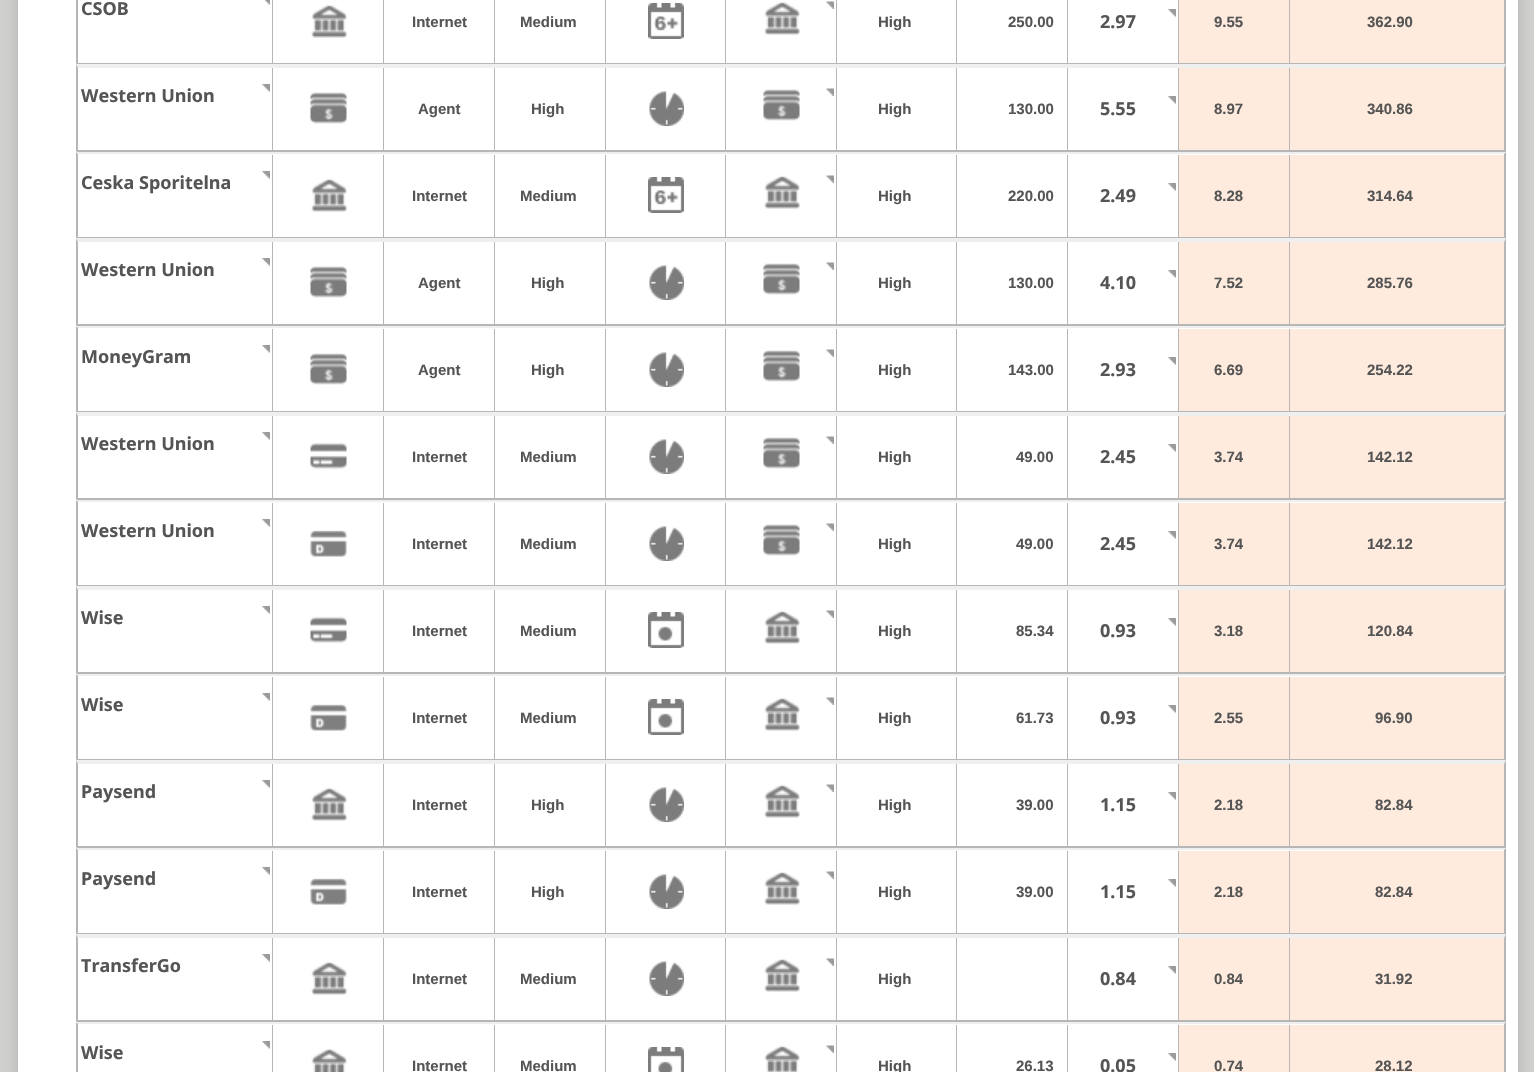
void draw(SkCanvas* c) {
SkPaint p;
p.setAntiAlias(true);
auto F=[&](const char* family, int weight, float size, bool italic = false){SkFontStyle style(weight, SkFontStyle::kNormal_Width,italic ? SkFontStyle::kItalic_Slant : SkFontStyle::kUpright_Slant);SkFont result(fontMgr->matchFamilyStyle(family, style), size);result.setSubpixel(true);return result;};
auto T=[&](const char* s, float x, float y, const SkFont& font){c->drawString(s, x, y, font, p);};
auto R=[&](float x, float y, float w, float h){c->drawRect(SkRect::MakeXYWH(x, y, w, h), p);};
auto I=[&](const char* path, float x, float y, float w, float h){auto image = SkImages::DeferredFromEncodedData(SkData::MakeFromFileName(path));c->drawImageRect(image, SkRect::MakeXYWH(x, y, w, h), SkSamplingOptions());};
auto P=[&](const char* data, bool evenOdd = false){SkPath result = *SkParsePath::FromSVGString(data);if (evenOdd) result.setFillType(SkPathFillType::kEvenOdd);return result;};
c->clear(0xffd1d2cf);
p.setColor(0xffafb1ae);
p.setMaskFilter(SkMaskFilter::MakeBlur(kNormal_SkBlurStyle, 7.5));
c->drawRect(SkRect::MakeXYWH(18,-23,1500,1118),p);
p.setMaskFilter(nullptr);
p.setColor(0xffffffff);
R(18,0,1500,1072);
p.setColor(0xfffeebdd);
R(1290,0,214,63);
p.setColor(0xffb6b6b6);
c->drawPath(P("M1506-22v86l-2-1v-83z"),p);
R(77,63,1429,2);
c->drawPath(P("M76 64v-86l2 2v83z"),p);
R(272,0,1,63);
I("1.png",264,0,6,5);
auto f1 = F("Noto Sans",700,18);
p.setColor(0xff555555);
T("CSOB",81,15,f1);
p.setColor(0xffb6b6b6);
R(383,0,1,63);
I("2.png",311,4,36,34);
R(725,0,1,63);
I("3.png",648,3,36,36);
R(836,0,1,63);
I("4.png",826,1,8,8);
I("2.png",764,1,36,34);
R(494,0,1,63);
auto f2 = F("Liberation Sans",700,15);
p.setColor(0xff555555);
T("Internet",412,27,f2);
p.setColor(0xffb6b6b6);
R(605,0,1,63);
p.setColor(0xff555555);
T("Medium",520,27,f2);
p.setColor(0xffb6b6b6);
R(956,0,1,63);
p.setColor(0xff555555);
T("High",878,27,f2);
p.setColor(0xffb6b6b6);
R(1067,0,1,63);
p.setColor(0xff555555);
T("250.00",1008,27,f2);
p.setColor(0xffb6b6b6);
R(1178,0,1,63);
I("5.png",1168,9,8,8);
p.setColor(0xff555555);
T("2.97",1100,28,f1);
p.setColor(0xfffeebdd);
R(1179,0,110,63);
p.setColor(0xffb6b6b6);
R(1289,0,1,63);
p.setColor(0xff555555);
T("9.55",1214,27,f2);
T("362.90",1367,27,f2);
p.setColor(0xfffeebdd);
R(1290,68,214,82);
p.setColor(0xffefefef);
c->drawPath(P("M76 64h1430l-2 4h-1426z"),p);
p.setColor(0xffb6b6b6);
c->drawPath(P("M1506 64v88l-2-2v-82z"),p);
R(77,150,1429,2);
c->drawPath(P("M76 152v-88l2 4v82z"),p);
R(272,68,1,82);
I("5.png",262,84,8,8);
p.setColor(0xff555555);
T("Western Union",81,102,f1);
p.setColor(0xffb6b6b6);
R(383,68,1,82);
I("6.png",310,92,37,32);
R(725,68,1,82);
I("7.png",649,91,35,35);
R(836,68,1,82);
I("4.png",826,88,8,8);
I("6.png",763,89,37,32);
R(494,68,1,82);
p.setColor(0xff555555);
T("Agent",418,114,f2);
p.setColor(0xffb6b6b6);
R(605,68,1,82);
p.setColor(0xff555555);
T("High",531,114,f2);
p.setColor(0xffb6b6b6);
R(956,68,1,82);
p.setColor(0xff555555);
T("High",878,114,f2);
p.setColor(0xffb6b6b6);
R(1067,68,1,82);
p.setColor(0xff555555);
T("130.00",1008,114,f2);
p.setColor(0xffb6b6b6);
R(1178,68,1,82);
I("5.png",1168,96,8,8);
p.setColor(0xff555555);
T("5.55",1100,115,f1);
p.setColor(0xfffeebdd);
R(1179,68,110,82);
p.setColor(0xffb6b6b6);
R(1289,68,1,82);
p.setColor(0xff555555);
T("8.97",1214,114,f2);
T("340.86",1367,114,f2);
p.setColor(0xfffeebdd);
R(1290,155,214,82);
p.setColor(0xffefefef);
c->drawPath(P("M76 152h1430l-2 2h-1426z"),p);
p.setColor(0xffb6b6b6);
c->drawPath(P("M1506 152v86l-2-1v-83z"),p);
R(77,237,1429,2);
c->drawPath(P("M76 238v-86l2 2v83z"),p);
R(272,155,1,82);
I("5.png",262,171,8,8);
p.setColor(0xff555555);
T("Ceska Sporitelna",81,189,f1);
p.setColor(0xffb6b6b6);
R(383,155,1,82);
I("2.png",311,178,36,34);
R(725,155,1,82);
I("3.png",648,177,36,36);
R(836,155,1,82);
I("4.png",826,175,8,8);
I("2.png",764,175,36,34);
R(494,155,1,82);
p.setColor(0xff555555);
T("Internet",412,201,f2);
p.setColor(0xffb6b6b6);
R(605,155,1,82);
p.setColor(0xff555555);
T("Medium",520,201,f2);
p.setColor(0xffb6b6b6);
R(956,155,1,82);
p.setColor(0xff555555);
T("High",878,201,f2);
p.setColor(0xffb6b6b6);
R(1067,155,1,82);
p.setColor(0xff555555);
T("220.00",1008,201,f2);
p.setColor(0xffb6b6b6);
R(1178,155,1,82);
I("5.png",1168,183,8,8);
p.setColor(0xff555555);
T("2.49",1100,202,f1);
p.setColor(0xfffeebdd);
R(1179,155,110,82);
p.setColor(0xffb6b6b6);
R(1289,155,1,82);
p.setColor(0xff555555);
T("8.28",1214,201,f2);
T("314.64",1367,201,f2);
p.setColor(0xfffeebdd);
R(1290,242,214,82);
p.setColor(0xffefefef);
c->drawPath(P("M76 238h1430l-2 4h-1426z"),p);
p.setColor(0xffb6b6b6);
c->drawPath(P("M1506 238v88l-2-2v-82z"),p);
R(77,324,1429,2);
c->drawPath(P("M76 326v-88l2 4v82z"),p);
R(272,242,1,82);
I("5.png",262,258,8,8);
p.setColor(0xff555555);
T("Western Union",81,276,f1);
p.setColor(0xffb6b6b6);
R(383,242,1,82);
I("6.png",310,266,37,32);
R(725,242,1,82);
I("7.png",649,265,35,35);
R(836,242,1,82);
I("4.png",826,262,8,8);
I("6.png",763,263,37,32);
R(494,242,1,82);
p.setColor(0xff555555);
T("Agent",418,288,f2);
p.setColor(0xffb6b6b6);
R(605,242,1,82);
p.setColor(0xff555555);
T("High",531,288,f2);
p.setColor(0xffb6b6b6);
R(956,242,1,82);
p.setColor(0xff555555);
T("High",878,288,f2);
p.setColor(0xffb6b6b6);
R(1067,242,1,82);
p.setColor(0xff555555);
T("130.00",1008,288,f2);
p.setColor(0xffb6b6b6);
R(1178,242,1,82);
I("5.png",1168,270,8,8);
p.setColor(0xff555555);
T("4.10",1100,289,f1);
p.setColor(0xfffeebdd);
R(1179,242,110,82);
p.setColor(0xffb6b6b6);
R(1289,242,1,82);
p.setColor(0xff555555);
T("7.52",1214,288,f2);
T("285.76",1367,288,f2);
p.setColor(0xfffeebdd);
R(1290,329,214,82);
p.setColor(0xffefefef);
c->drawPath(P("M76 326h1430l-2 2h-1426z"),p);
p.setColor(0xffb6b6b6);
c->drawPath(P("M1506 326v86l-2-1v-83z"),p);
R(77,411,1429,2);
c->drawPath(P("M76 412v-86l2 2v83z"),p);
R(272,329,1,82);
I("5.png",262,345,8,8);
p.setColor(0xff555555);
T("MoneyGram",81,363,f1);
p.setColor(0xffb6b6b6);
R(383,329,1,82);
I("6.png",310,353,37,32);
R(725,329,1,82);
I("7.png",649,352,35,35);
R(836,329,1,82);
I("4.png",826,349,8,8);
I("6.png",763,350,37,32);
R(494,329,1,82);
p.setColor(0xff555555);
T("Agent",418,375,f2);
p.setColor(0xffb6b6b6);
R(605,329,1,82);
p.setColor(0xff555555);
T("High",531,375,f2);
p.setColor(0xffb6b6b6);
R(956,329,1,82);
p.setColor(0xff555555);
T("High",878,375,f2);
p.setColor(0xffb6b6b6);
R(1067,329,1,82);
p.setColor(0xff555555);
T("143.00",1008,375,f2);
p.setColor(0xffb6b6b6);
R(1178,329,1,82);
I("5.png",1168,357,8,8);
p.setColor(0xff555555);
T("2.93",1100,376,f1);
p.setColor(0xfffeebdd);
R(1179,329,110,82);
p.setColor(0xffb6b6b6);
R(1289,329,1,82);
p.setColor(0xff555555);
T("6.69",1214,375,f2);
T("254.22",1367,375,f2);
p.setColor(0xfffeebdd);
R(1290,416,214,82);
p.setColor(0xffefefef);
c->drawPath(P("M76 412h1430l-2 4h-1426z"),p);
p.setColor(0xffb6b6b6);
c->drawPath(P("M1506 412v88l-2-2v-82z"),p);
R(77,498,1429,2);
c->drawPath(P("M76 500v-88l2 4v82z"),p);
R(272,416,1,82);
I("5.png",262,432,8,8);
p.setColor(0xff555555);
T("Western Union",81,450,f1);
p.setColor(0xffb6b6b6);
R(383,416,1,82);
I("8.png",310,442,37,28);
R(725,416,1,82);
I("7.png",649,439,35,35);
R(836,416,1,82);
I("4.png",826,436,8,8);
I("6.png",763,437,37,32);
R(494,416,1,82);
p.setColor(0xff555555);
T("Internet",412,462,f2);
p.setColor(0xffb6b6b6);
R(605,416,1,82);
p.setColor(0xff555555);
T("Medium",520,462,f2);
p.setColor(0xffb6b6b6);
R(956,416,1,82);
p.setColor(0xff555555);
T("High",878,462,f2);
p.setColor(0xffb6b6b6);
R(1067,416,1,82);
p.setColor(0xff555555);
T("49.00",1016,462,f2);
p.setColor(0xffb6b6b6);
R(1178,416,1,82);
I("5.png",1168,444,8,8);
p.setColor(0xff555555);
T("2.45",1100,463,f1);
p.setColor(0xfffeebdd);
R(1179,416,110,82);
p.setColor(0xffb6b6b6);
R(1289,416,1,82);
p.setColor(0xff555555);
T("3.74",1214,462,f2);
T("142.12",1367,462,f2);
p.setColor(0xfffeebdd);
R(1425,503,79,82);
p.setColor(0xffefefef);
c->drawPath(P("M76 500h1430l-2 2h-1426z"),p);
p.setColor(0xffb6b6b6);
c->drawPath(P("M1506 500v86l-2-1v-83z"),p);
R(77,585,1429,2);
c->drawPath(P("M76 586v-86l2 2v83z"),p);
R(272,503,1,82);
I("5.png",262,519,8,8);
p.setColor(0xff555555);
T("Western Union",81,537,f1);
p.setColor(0xffb6b6b6);
R(383,503,1,82);
I("9.png",310,530,37,27);
R(725,503,1,82);
I("7.png",649,526,35,35);
R(836,503,1,82);
I("4.png",826,523,8,8);
I("6.png",763,524,37,32);
R(494,503,1,82);
p.setColor(0xff555555);
T("Internet",412,549,f2);
p.setColor(0xffb6b6b6);
R(605,503,1,82);
p.setColor(0xff555555);
T("Medium",520,549,f2);
p.setColor(0xffb6b6b6);
R(956,503,1,82);
p.setColor(0xff555555);
T("High",878,549,f2);
p.setColor(0xffb6b6b6);
R(1067,503,1,82);
p.setColor(0xff555555);
T("49.00",1016,549,f2);
p.setColor(0xffb6b6b6);
R(1178,503,1,82);
I("5.png",1168,531,8,8);
p.setColor(0xff555555);
T("2.45",1100,550,f1);
p.setColor(0xfffeebdd);
R(1179,503,110,82);
p.setColor(0xffb6b6b6);
R(1289,503,1,82);
p.setColor(0xff555555);
T("3.74",1214,549,f2);
p.setColor(0xfffeebdd);
R(1290,503,135,82);
p.setColor(0xff555555);
T("142.12",1367,549,f2);
p.setColor(0xfffeebdd);
R(1425,590,79,82);
p.setColor(0xffefefef);
c->drawPath(P("M76 586h1430l-2 4h-1426z"),p);
p.setColor(0xffb6b6b6);
c->drawPath(P("M1506 586v88l-2-2v-82z"),p);
R(77,672,1429,2);
c->drawPath(P("M76 674v-88l2 4v82z"),p);
R(272,590,1,82);
I("5.png",262,606,8,8);
p.setColor(0xff555555);
T("Wise",81,624,f1);
p.setColor(0xffb6b6b6);
R(383,590,1,82);
I("8.png",310,616,37,28);
R(725,590,1,82);
I("10.png",648,612,36,36);
R(836,590,1,82);
I("4.png",826,610,8,8);
I("2.png",764,610,36,34);
R(494,590,1,82);
p.setColor(0xff555555);
T("Internet",412,636,f2);
p.setColor(0xffb6b6b6);
R(605,590,1,82);
p.setColor(0xff555555);
T("Medium",520,636,f2);
p.setColor(0xffb6b6b6);
R(956,590,1,82);
p.setColor(0xff555555);
T("High",878,636,f2);
p.setColor(0xffb6b6b6);
R(1067,590,1,82);
p.setColor(0xff555555);
T("85.34",1016,636,f2);
p.setColor(0xffb6b6b6);
R(1178,590,1,82);
I("5.png",1168,618,8,8);
p.setColor(0xff555555);
T("0.93",1100,637,f1);
p.setColor(0xfffeebdd);
R(1179,590,110,82);
p.setColor(0xffb6b6b6);
R(1289,590,1,82);
p.setColor(0xff555555);
T("3.18",1214,636,f2);
p.setColor(0xfffeebdd);
R(1290,590,135,82);
p.setColor(0xff555555);
T("120.84",1367,636,f2);
p.setColor(0xfffeebdd);
R(1425,677,79,82);
p.setColor(0xffefefef);
c->drawPath(P("M76 674h1430l-2 2h-1426z"),p);
p.setColor(0xffb6b6b6);
c->drawPath(P("M1506 674v86l-2-1v-83z"),p);
R(77,759,1429,2);
c->drawPath(P("M76 760v-86l2 2v83z"),p);
R(272,677,1,82);
I("5.png",262,693,8,8);
p.setColor(0xff555555);
T("Wise",81,711,f1);
p.setColor(0xffb6b6b6);
R(383,677,1,82);
I("9.png",310,704,37,27);
R(725,677,1,82);
I("10.png",648,699,36,36);
R(836,677,1,82);
I("4.png",826,697,8,8);
I("2.png",764,697,36,34);
R(494,677,1,82);
p.setColor(0xff555555);
T("Internet",412,723,f2);
p.setColor(0xffb6b6b6);
R(605,677,1,82);
p.setColor(0xff555555);
T("Medium",520,723,f2);
p.setColor(0xffb6b6b6);
R(956,677,1,82);
p.setColor(0xff555555);
T("High",878,723,f2);
p.setColor(0xffb6b6b6);
R(1067,677,1,82);
p.setColor(0xff555555);
T("61.73",1016,723,f2);
p.setColor(0xffb6b6b6);
R(1178,677,1,82);
I("5.png",1168,705,8,8);
p.setColor(0xff555555);
T("0.93",1100,724,f1);
p.setColor(0xfffeebdd);
R(1179,677,110,82);
p.setColor(0xffb6b6b6);
R(1289,677,1,82);
p.setColor(0xff555555);
T("2.55",1214,723,f2);
p.setColor(0xfffeebdd);
R(1290,677,135,82);
p.setColor(0xff555555);
T("96.90",1375,723,f2);
p.setColor(0xfffeebdd);
R(1425,764,79,82);
p.setColor(0xffefefef);
c->drawPath(P("M76 760h1430l-2 4h-1426z"),p);
p.setColor(0xffb6b6b6);
c->drawPath(P("M1506 760v88l-2-2v-82z"),p);
R(77,846,1429,2);
c->drawPath(P("M76 848v-88l2 4v82z"),p);
R(272,764,1,82);
I("5.png",262,780,8,8);
p.setColor(0xff555555);
T("Paysend",81,798,f1);
p.setColor(0xffb6b6b6);
R(383,764,1,82);
I("2.png",311,787,36,34);
R(725,764,1,82);
I("7.png",649,787,35,35);
R(836,764,1,82);
I("4.png",826,784,8,8);
I("2.png",764,784,36,34);
R(494,764,1,82);
p.setColor(0xff555555);
T("Internet",412,810,f2);
p.setColor(0xffb6b6b6);
R(605,764,1,82);
p.setColor(0xff555555);
T("High",531,810,f2);
p.setColor(0xffb6b6b6);
R(956,764,1,82);
p.setColor(0xff555555);
T("High",878,810,f2);
p.setColor(0xffb6b6b6);
R(1067,764,1,82);
p.setColor(0xff555555);
T("39.00",1016,810,f2);
p.setColor(0xffb6b6b6);
R(1178,764,1,82);
I("5.png",1168,792,8,8);
p.setColor(0xff555555);
T("1.15",1100,811,f1);
p.setColor(0xfffeebdd);
R(1179,764,110,82);
p.setColor(0xffb6b6b6);
R(1289,764,1,82);
p.setColor(0xff555555);
T("2.18",1214,810,f2);
p.setColor(0xfffeebdd);
R(1290,764,135,82);
p.setColor(0xff555555);
T("82.84",1375,810,f2);
p.setColor(0xfffeebdd);
R(1425,851,79,82);
p.setColor(0xffefefef);
c->drawPath(P("M76 848h1430l-2 2h-1426z"),p);
p.setColor(0xffb6b6b6);
c->drawPath(P("M1506 848v86l-2-1v-83z"),p);
R(77,933,1429,2);
c->drawPath(P("M76 934v-86l2 2v83z"),p);
R(272,851,1,82);
I("5.png",262,867,8,8);
p.setColor(0xff555555);
T("Paysend",81,885,f1);
p.setColor(0xffb6b6b6);
R(383,851,1,82);
I("9.png",310,878,37,27);
R(725,851,1,82);
I("7.png",649,874,35,35);
R(836,851,1,82);
I("4.png",826,871,8,8);
I("2.png",764,871,36,34);
R(494,851,1,82);
p.setColor(0xff555555);
T("Internet",412,897,f2);
p.setColor(0xffb6b6b6);
R(605,851,1,82);
p.setColor(0xff555555);
T("High",531,897,f2);
p.setColor(0xffb6b6b6);
R(956,851,1,82);
p.setColor(0xff555555);
T("High",878,897,f2);
p.setColor(0xffb6b6b6);
R(1067,851,1,82);
p.setColor(0xff555555);
T("39.00",1016,897,f2);
p.setColor(0xffb6b6b6);
R(1178,851,1,82);
I("5.png",1168,879,8,8);
p.setColor(0xff555555);
T("1.15",1100,898,f1);
p.setColor(0xfffeebdd);
R(1179,851,110,82);
p.setColor(0xffb6b6b6);
R(1289,851,1,82);
p.setColor(0xff555555);
T("2.18",1214,897,f2);
p.setColor(0xfffeebdd);
R(1290,851,135,82);
p.setColor(0xff555555);
T("82.84",1375,897,f2);
p.setColor(0xfffeebdd);
R(1425,938,79,82);
p.setColor(0xffefefef);
c->drawPath(P("M76 934h1430l-2 4h-1426z"),p);
p.setColor(0xffb6b6b6);
c->drawPath(P("M1506 934v88l-2-2v-82z"),p);
R(77,1020,1429,2);
c->drawPath(P("M76 1022v-88l2 4v82z"),p);
R(272,938,1,82);
I("5.png",262,954,8,8);
p.setColor(0xff555555);
T("TransferGo",81,972,f1);
p.setColor(0xffb6b6b6);
R(383,938,1,82);
I("2.png",311,961,36,34);
R(725,938,1,82);
I("7.png",649,961,35,35);
R(836,938,1,82);
I("4.png",826,958,8,8);
I("2.png",764,958,36,34);
R(1067,938,1,82);
R(494,938,1,82);
p.setColor(0xff555555);
T("Internet",412,984,f2);
p.setColor(0xffb6b6b6);
R(605,938,1,82);
p.setColor(0xff555555);
T("Medium",520,984,f2);
p.setColor(0xffb6b6b6);
R(956,938,1,82);
p.setColor(0xff555555);
T("High",878,984,f2);
p.setColor(0xffb6b6b6);
R(1178,938,1,82);
I("5.png",1168,966,8,8);
p.setColor(0xff555555);
T("0.84",1100,985,f1);
p.setColor(0xfffeebdd);
R(1179,938,110,82);
p.setColor(0xffb6b6b6);
R(1289,938,1,82);
p.setColor(0xff555555);
T("0.84",1214,984,f2);
p.setColor(0xfffeebdd);
R(1290,938,135,82);
p.setColor(0xff555555);
T("31.92",1375,984,f2);
p.setColor(0xfffeebdd);
R(1425,1025,79,47);
p.setColor(0xffefefef);
c->drawPath(P("M76 1022h1430l-2 2h-1426z"),p);
p.setColor(0xffb6b6b6);
c->drawPath(P("M1506 1022v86l-2-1v-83z"),p);
c->drawPath(P("M76 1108v-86l2 2v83z"),p);
R(272,1025,1,47);
I("5.png",262,1041,8,8);
p.setColor(0xff555555);
T("Wise",81,1059,f1);
p.setColor(0xffb6b6b6);
R(383,1025,1,47);
I("11.png",311,1048,36,24);
R(725,1025,1,47);
I("12.png",648,1047,36,25);
R(836,1025,1,47);
I("4.png",826,1045,8,8);
I("13.png",764,1045,36,27);
R(494,1025,1,47);
p.setColor(0xff555555);
T("Internet",412,1071,f2);
p.setColor(0xffb6b6b6);
R(605,1025,1,47);
p.setColor(0xff555555);
T("Medium",520,1071,f2);
p.setColor(0xffb6b6b6);
R(956,1025,1,47);
p.setColor(0xff555555);
T("High",878,1071,f2);
p.setColor(0xffb6b6b6);
R(1067,1025,1,47);
p.setColor(0xff555555);
T("26.13",1016,1071,f2);
p.setColor(0xffb6b6b6);
R(1178,1025,1,47);
I("5.png",1168,1053,8,8);
p.setColor(0xff555555);
T("0.05",1100,1072,f1);
p.setColor(0xfffeebdd);
R(1179,1025,110,47);
p.setColor(0xffb6b6b6);
R(1289,1025,1,47);
p.setColor(0xff555555);
T("0.74",1214,1071,f2);
p.setColor(0xfffeebdd);
R(1290,1025,135,47);
p.setColor(0xff555555);
T("28.12",1375,1071,f2);
}
